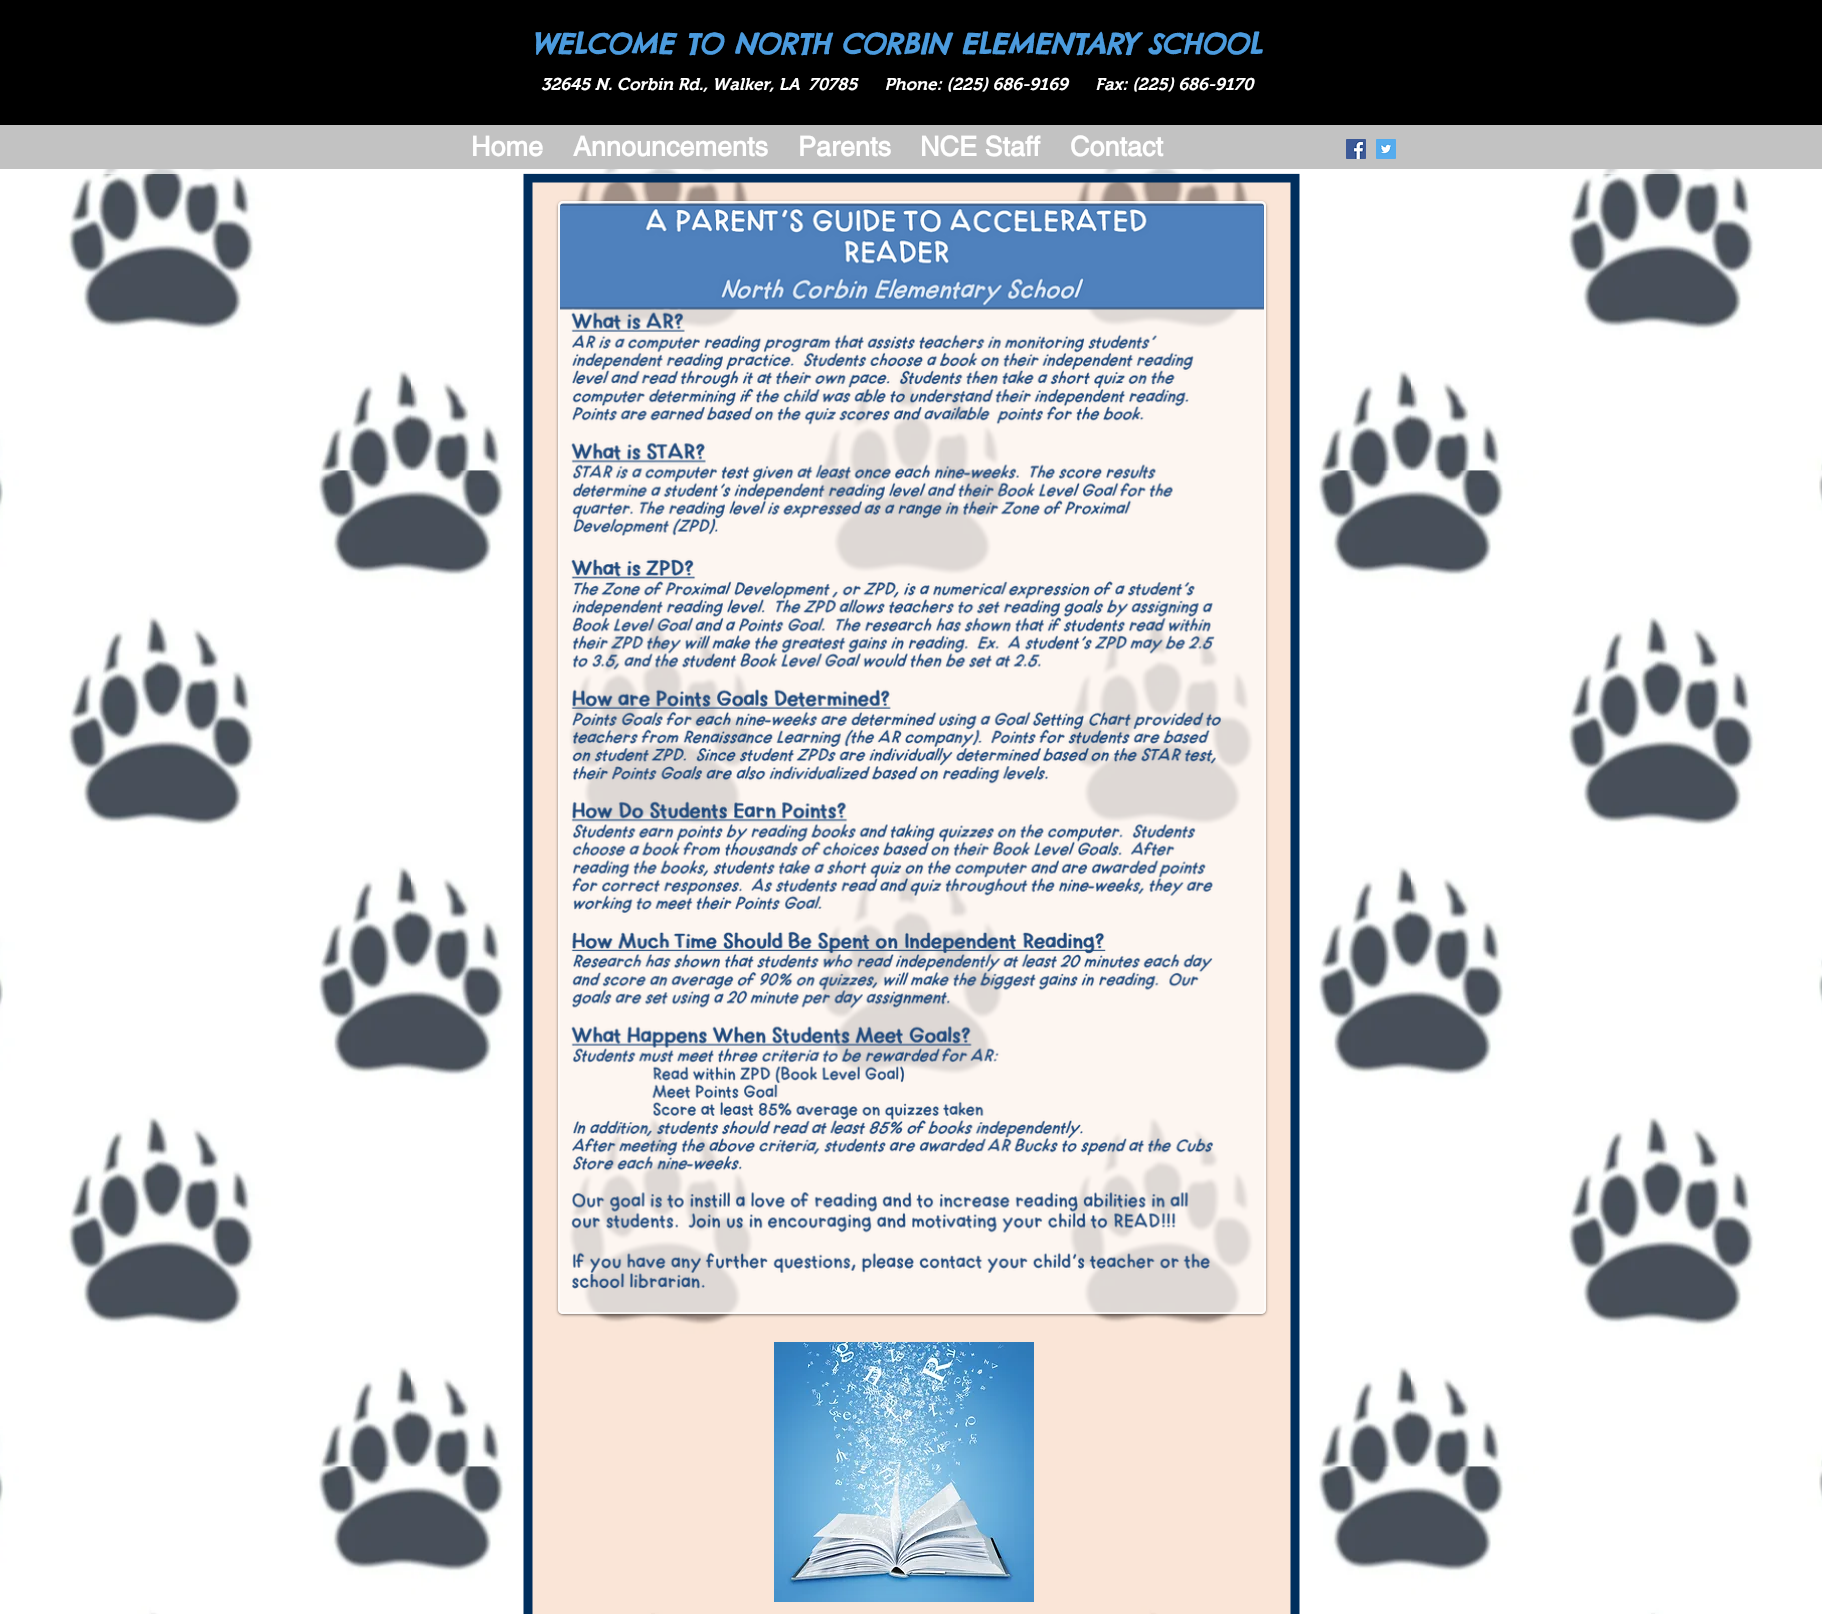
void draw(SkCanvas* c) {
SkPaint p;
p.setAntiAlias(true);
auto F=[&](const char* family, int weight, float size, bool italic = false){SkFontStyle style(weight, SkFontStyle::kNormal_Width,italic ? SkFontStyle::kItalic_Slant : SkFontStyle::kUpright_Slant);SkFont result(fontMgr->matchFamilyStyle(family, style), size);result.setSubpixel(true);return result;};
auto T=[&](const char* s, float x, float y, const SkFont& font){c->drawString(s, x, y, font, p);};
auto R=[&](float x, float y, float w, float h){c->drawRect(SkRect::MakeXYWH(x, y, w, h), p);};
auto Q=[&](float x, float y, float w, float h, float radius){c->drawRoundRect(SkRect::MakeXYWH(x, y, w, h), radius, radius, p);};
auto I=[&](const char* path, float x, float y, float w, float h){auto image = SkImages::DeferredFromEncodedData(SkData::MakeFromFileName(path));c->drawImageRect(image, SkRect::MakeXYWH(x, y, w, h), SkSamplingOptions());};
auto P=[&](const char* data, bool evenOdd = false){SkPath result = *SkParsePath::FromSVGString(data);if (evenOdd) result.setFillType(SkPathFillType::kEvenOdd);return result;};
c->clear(0xffffffff);
p.setColor(0xff000000);
R(0,0,1822,169);
auto f1 = F("Chelsea Market",700,28,true);
p.setColor(0xff4b9bde);
T("WELCOME TO NORTH CORBIN ELEMENTARY SCHOOL",531,54,f1);
auto f2 = F("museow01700",600,17,true);
p.setColor(0xffffffff);
T("32645 N. Corbin Rd., Walker, LA  70785      Phone: (225) 686-9169",541,90,f2);
T("Fax: (225) 686-9170",1095,90,f2);
I("5.png",0,169,1822,1445);
p.setColor(0x82f6ccb0);
R(532,182,759,1432);
p.setStroke(true);
p.setStrokeWidth(9);
p.setColor(0xff002e5d);
c->drawPath(P("M1295 178v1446h-767v-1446z"),p);
p.setStroke(false);
p.setColor(0xc2ffffff);
R(0,125,1822,49);
auto f3 = F("helvetica",700,27);
p.setColor(0xffffffff);
T("Home",471,156,f3);
T("Announcements",573,156,f3);
T("Parents",798,156,f3);
T("NCE Staff",920,156,f3);
T("Contact",1070,156,f3);
I("1.png",1346,139,20,20);
I("2.png",1376,139,20,20);
c->save();
c->clipPath(P("M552 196h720v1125h-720zm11 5h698c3 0 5 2 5 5v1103c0 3-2 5-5 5h-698c-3 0-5-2-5-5v-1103c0-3 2-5 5-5z",true),true);
p.setColor(0x80000000);
p.setMaskFilter(SkMaskFilter::MakeBlur(kNormal_SkBlurStyle, 1.5));
c->drawRoundRect(SkRect::MakeXYWH(558,202,708,1113),5,5,p);
p.setMaskFilter(nullptr);
c->restore();
p.setColor(0xa6ffffff);
Q(558,201,708,1113,5);
p.setStroke(true);
p.setStrokeWidth(2);
c->drawRoundRect(SkRect::MakeXYWH(559,202,706,1111),4,4,p);
I("3.png",560,203,704,1086);
I("4.png",774,1342,260,260);
}
